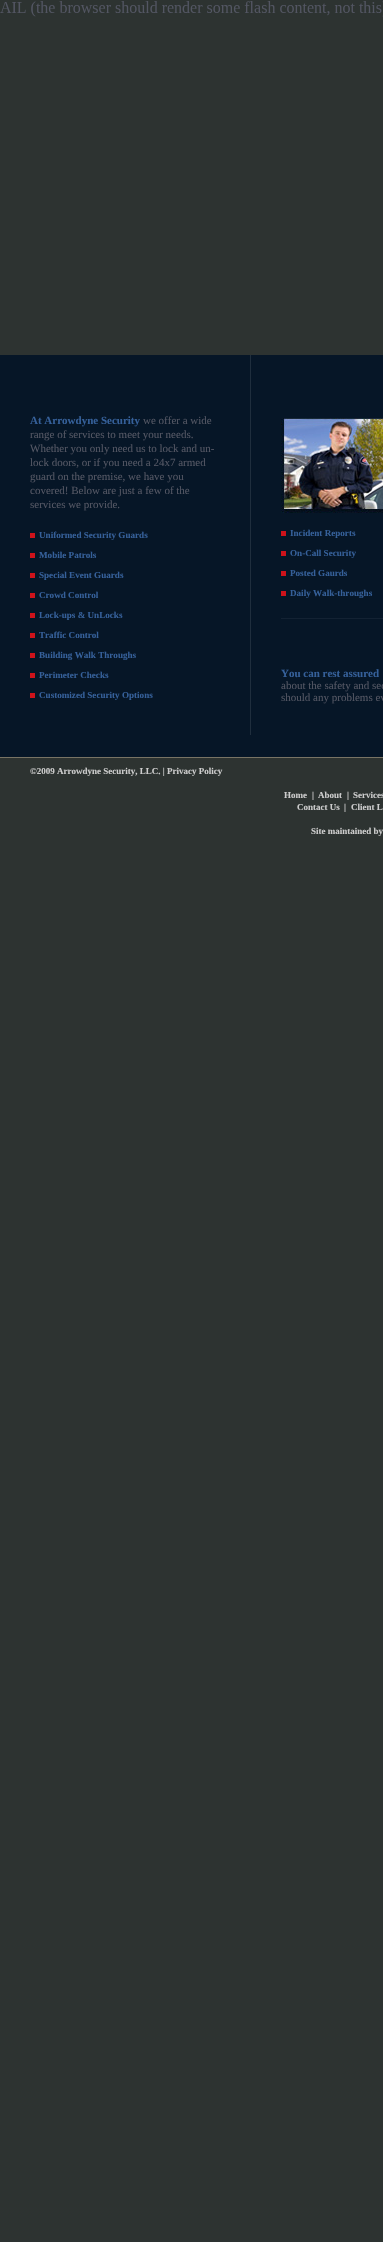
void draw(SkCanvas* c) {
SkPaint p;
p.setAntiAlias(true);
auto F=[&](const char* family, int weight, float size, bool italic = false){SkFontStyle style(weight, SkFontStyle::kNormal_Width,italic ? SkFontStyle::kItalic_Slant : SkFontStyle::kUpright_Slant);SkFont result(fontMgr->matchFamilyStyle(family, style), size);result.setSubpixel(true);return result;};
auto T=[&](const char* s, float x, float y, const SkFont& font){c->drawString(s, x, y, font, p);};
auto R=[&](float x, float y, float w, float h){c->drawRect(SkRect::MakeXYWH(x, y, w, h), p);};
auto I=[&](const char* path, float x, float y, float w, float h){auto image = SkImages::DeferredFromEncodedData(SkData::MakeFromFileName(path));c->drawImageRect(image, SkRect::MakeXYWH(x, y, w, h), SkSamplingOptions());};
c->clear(0xff2d3331);
I("1.png",0,1,383,16);
p.setColor(0xff061627);
R(0,355,383,402);
p.setColor(0xff787465);
R(0,757,383,1);
p.setColor(0xff1f2e3d);
R(250,355,1,380);
auto f1 = F("Liberation Serif",700,11);
p.setColor(0xff35609a);
T("At Arrowdyne Security",30,424,f1);
auto f2 = F("Liberation Serif",400,11);
p.setColor(0xff535663);
T("we offer a wide",143,424,f2);
T("range of services to meet your needs.",30,438,f2);
T("Whether you only need us to lock and un-",30,452,f2);
T("lock doors, or if you need a 24x7 armed",30,466,f2);
T("guard on the premise, we have you",30,480,f2);
T("covered! Below are just a few of the",30,494,f2);
T("services we provide.",30,508,f2);
p.setColor(0xffce131b);
R(30,533,5,5);
auto f3 = F("Liberation Serif",700,9.1);
p.setColor(0xff35609a);
T("Uniformed Security Guards",39,538,f3);
p.setColor(0xffce131b);
R(30,553,5,5);
p.setColor(0xff35609a);
T("Mobile Patrols",39,558,f3);
p.setColor(0xffce131b);
R(30,573,5,5);
p.setColor(0xff35609a);
T("Special Event Guards",39,578,f3);
p.setColor(0xffce131b);
R(30,593,5,5);
p.setColor(0xff35609a);
T("Crowd Control",39,598,f3);
p.setColor(0xffce131b);
R(30,613,5,5);
p.setColor(0xff35609a);
T("Lock-ups & UnLocks",39,618,f3);
p.setColor(0xffce131b);
R(30,633,5,5);
p.setColor(0xff35609a);
T("Traffic Control",39,638,f3);
p.setColor(0xffce131b);
R(30,653,5,5);
p.setColor(0xff35609a);
T("Building Walk Throughs",39,658,f3);
p.setColor(0xffce131b);
R(30,673,5,5);
p.setColor(0xff35609a);
T("Perimeter Checks",39,678,f3);
p.setColor(0xffce131b);
R(30,693,5,5);
p.setColor(0xff35609a);
T("Customized Security Options",39,698,f3);
I("2.png",281,418,102,95);
p.setColor(0xffce131b);
R(281,531,5,5);
p.setColor(0xff35609a);
T("Incident Reports",290,536,f3);
p.setColor(0xffce131b);
R(281,551,5,5);
p.setColor(0xff35609a);
T("On-Call Security",290,556,f3);
p.setColor(0xffce131b);
R(281,571,5,5);
p.setColor(0xff35609a);
T("Posted Gaurds",290,576,f3);
p.setColor(0xffce131b);
R(281,591,5,5);
p.setColor(0xff35609a);
T("Daily Walk-throughs",290,596,f3);
p.setColor(0xff132233);
R(281,618,102,1);
p.setColor(0xff35609a);
T("You can rest assured",281,677,f1);
p.setColor(0xff535663);
T("about the safety and sec",281,689,f2);
T("should any problems ev",281,701,f2);
auto f4 = F("Liberation Serif",700,9);
p.setColor(0xffcccccc);
T("©2009 Arrowdyne Security, LLC. | Privacy Policy",30,774,f4);
T("Home",284,798,f4);
T("|",312,798,f4);
T("About",318,798,f4);
T("|",347,798,f4);
T("Services",353,798,f4);
T("Contact Us",297,810,f4);
T("|",344,810,f4);
T("Client L",351,810,f4);
T("Site maintained by",311,834,f4);
}
